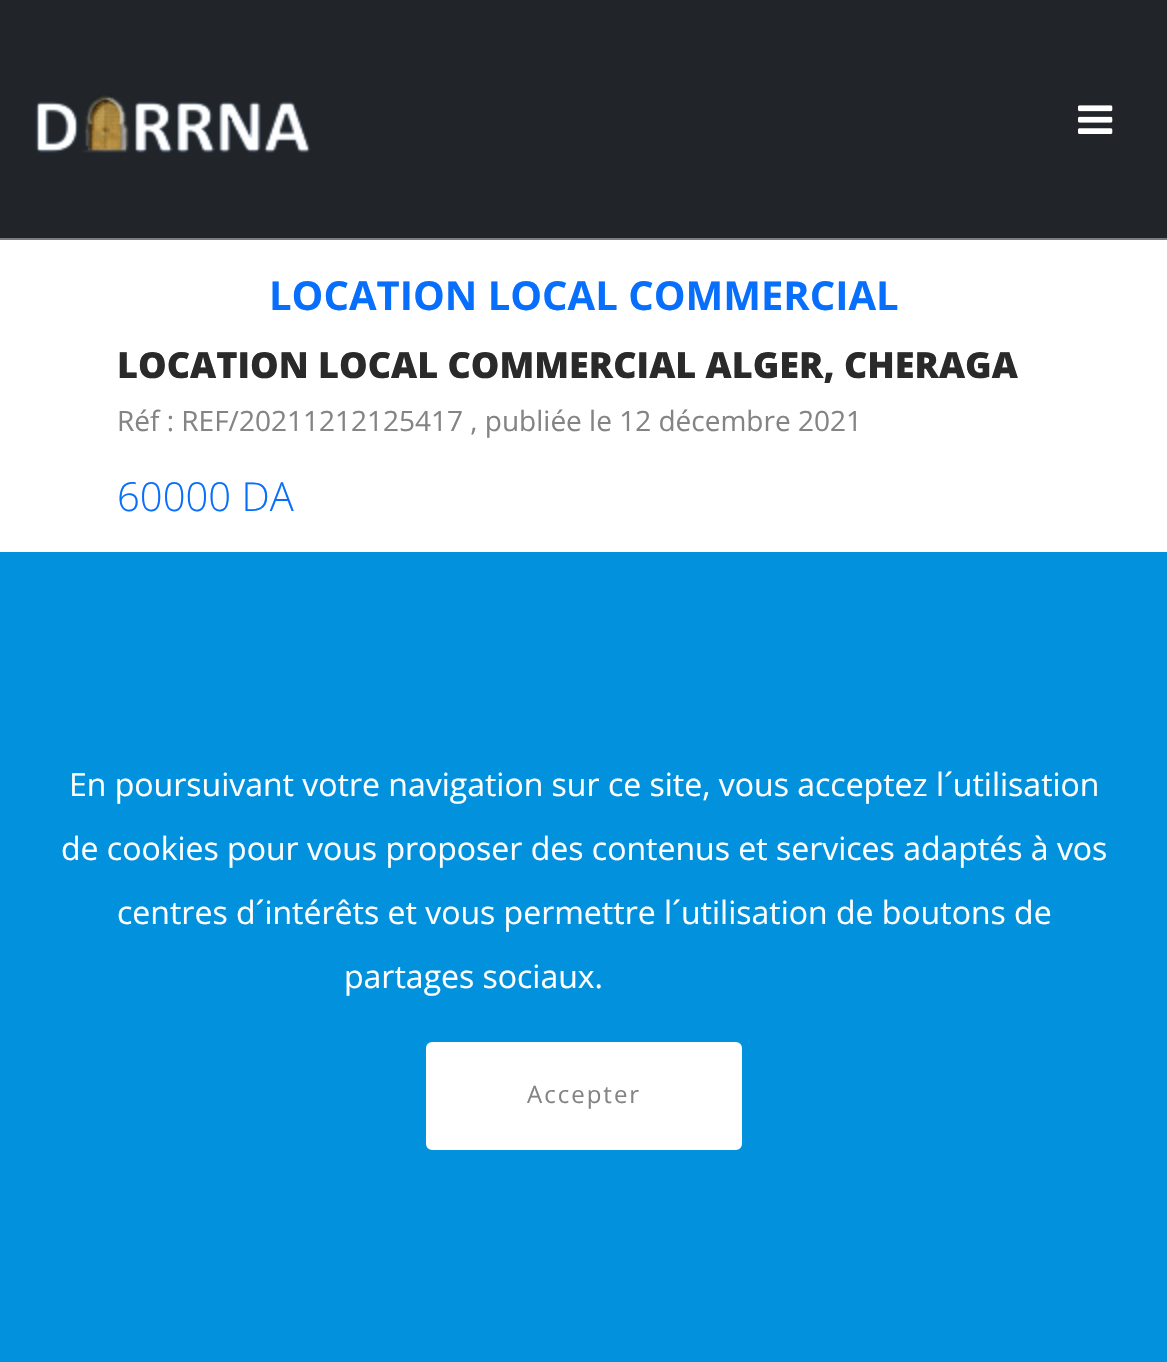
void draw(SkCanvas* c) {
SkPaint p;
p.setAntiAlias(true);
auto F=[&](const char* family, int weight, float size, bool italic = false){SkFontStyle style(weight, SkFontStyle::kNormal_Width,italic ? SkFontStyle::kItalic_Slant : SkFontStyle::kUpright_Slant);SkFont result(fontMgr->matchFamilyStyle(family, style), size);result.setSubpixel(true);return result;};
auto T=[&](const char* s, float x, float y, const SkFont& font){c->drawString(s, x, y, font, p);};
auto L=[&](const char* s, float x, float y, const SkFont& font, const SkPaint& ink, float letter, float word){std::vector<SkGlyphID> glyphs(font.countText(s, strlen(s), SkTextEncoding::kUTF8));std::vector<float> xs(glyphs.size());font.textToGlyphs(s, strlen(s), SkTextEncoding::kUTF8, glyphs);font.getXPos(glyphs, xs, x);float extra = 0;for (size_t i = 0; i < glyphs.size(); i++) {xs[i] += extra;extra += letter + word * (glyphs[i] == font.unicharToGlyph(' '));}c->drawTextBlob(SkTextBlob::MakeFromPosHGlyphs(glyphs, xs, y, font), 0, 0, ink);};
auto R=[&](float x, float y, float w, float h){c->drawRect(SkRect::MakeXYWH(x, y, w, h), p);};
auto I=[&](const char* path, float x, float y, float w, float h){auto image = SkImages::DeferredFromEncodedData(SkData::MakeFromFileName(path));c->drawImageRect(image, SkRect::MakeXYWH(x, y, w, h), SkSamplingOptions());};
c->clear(0xffffffff);
p.setColor(0xff212529);
R(0,0,1167,238);
p.setColor(0xff7a7c7f);
R(0,238,1167,2);
I("1.png",35,94,276,59);
I("2.png",1078,105,35,29);
auto f1 = F("Open Sans",700,40);
p.setColor(0xff086ffc);
T("LOCATION LOCAL COMMERCIAL",269,310,f1);
auto f2 = F("Open Sans",800,36);
p.setColor(0xff2a2a2a);
T("LOCATION LOCAL COMMERCIAL ALGER, CHERAGA",117,378,f2);
auto f3 = F("Open Sans",400,28);
p.setColor(0xff848484);
T("Réf : REF/20211212125417 , publiée le 12 décembre 2021",117,431,f3);
auto f4 = F("Open Sans",300,40);
p.setColor(0xff086ffc);
T("60000 DA",117,511,f4);
p.setColor(0xff0291dc);
R(0,552,1167,810);
auto f5 = F("Open Sans",400,32);
p.setColor(0xffffffff);
T("En poursuivant votre navigation sur ce site, vous acceptez l´utilisation",69,796,f5);
T("de cookies pour vous proposer des contenus et services adaptés à vos",61,860,f5);
T("centres d´intérêts et vous permettre l´utilisation de boutons de",117,924,f5);
T("partages sociaux.",344,988,f5);
c->drawRoundRect(SkRect::MakeXYWH(428,1044,312,104),4,4,p);
p.setStroke(true);
p.setStrokeWidth(4);
c->drawRoundRect(SkRect::MakeXYWH(428,1044,312,104),4,4,p);
auto f6 = F("Open Sans",400,24);
p.setStroke(false);
p.setColor(0xff848484);
L("Accepter",527,1103,f6,p,2,0);
}
